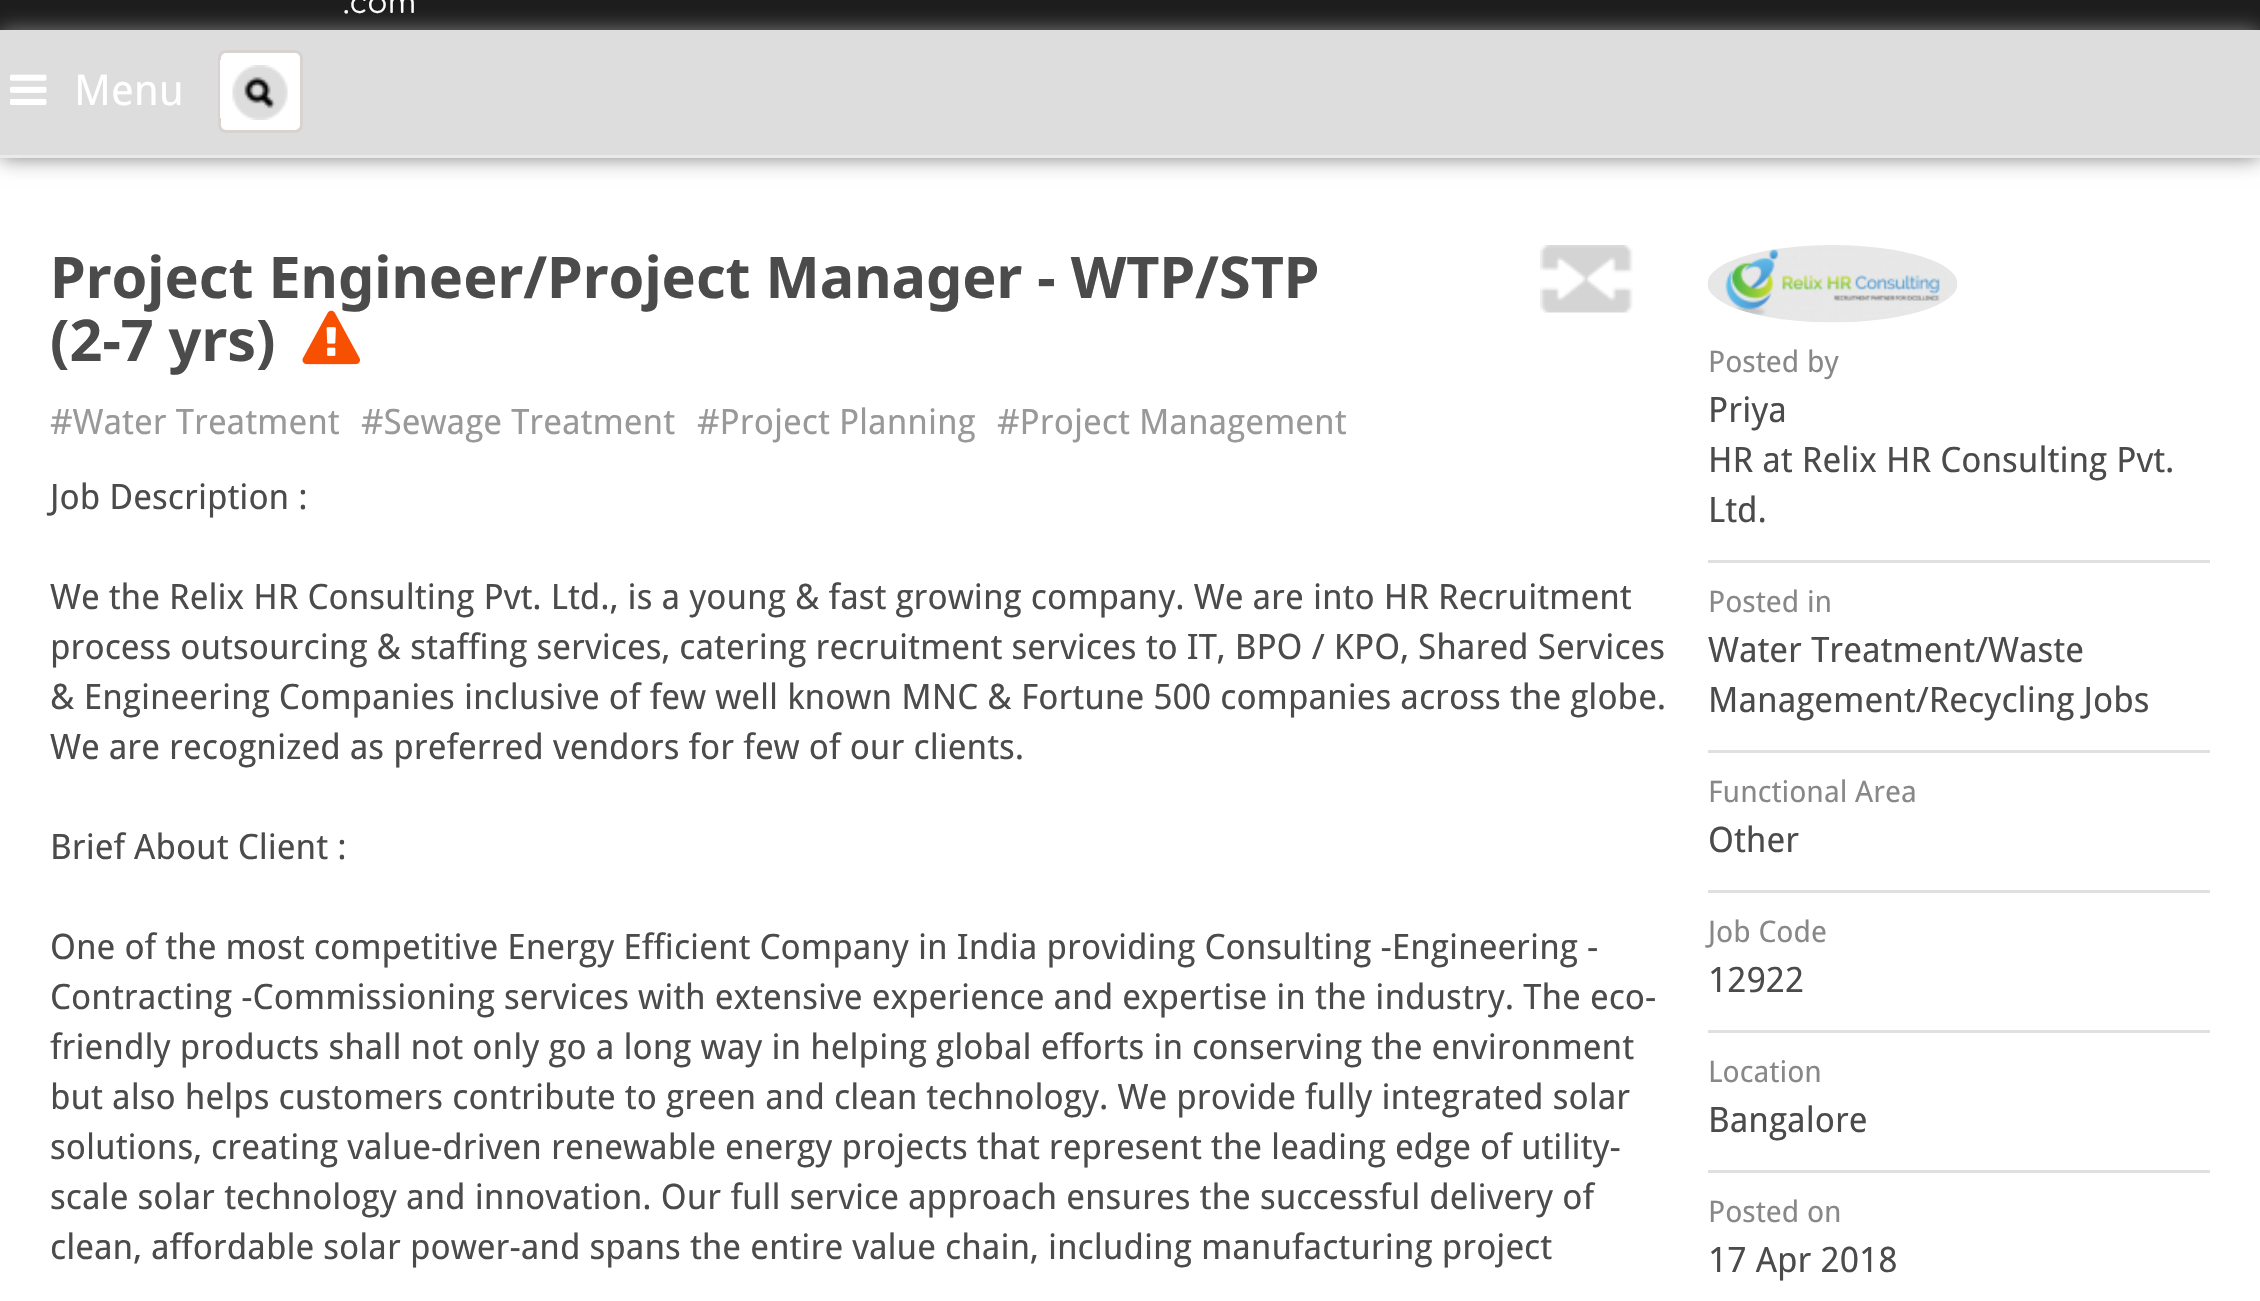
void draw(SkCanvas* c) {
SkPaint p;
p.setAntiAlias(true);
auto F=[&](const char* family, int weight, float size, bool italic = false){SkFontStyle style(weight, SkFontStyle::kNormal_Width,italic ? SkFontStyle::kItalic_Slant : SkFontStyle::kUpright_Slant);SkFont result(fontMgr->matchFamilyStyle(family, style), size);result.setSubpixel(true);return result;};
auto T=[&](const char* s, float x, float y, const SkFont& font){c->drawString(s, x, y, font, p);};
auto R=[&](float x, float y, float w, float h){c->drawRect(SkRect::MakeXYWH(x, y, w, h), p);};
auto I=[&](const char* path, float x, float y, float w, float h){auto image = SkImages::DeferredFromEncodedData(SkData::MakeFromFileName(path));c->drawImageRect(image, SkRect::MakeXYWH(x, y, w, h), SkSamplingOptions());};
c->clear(0xffffffff);
p.setColor(0xff1c1c1c);
R(0,0,2260,30);
auto f1 = F("Comfortaa",400,30);
p.setColor(0xffffffff);
T(".com",343,13,f1);
p.setColor(0xff808080);
p.setMaskFilter(SkMaskFilter::MakeBlur(kNormal_SkBlurStyle, 10));
c->drawRect(SkRect::MakeXYWH(0,30,2260,128),p);
p.setMaskFilter(nullptr);
p.setColor(0xffdddddd);
R(0,30,2260,125);
p.setColor(0xffeaeaea);
R(0,155,2260,3);
I("1.png",10,74,37,31);
auto f2 = F("Droid Sans",400,42.5);
p.setColor(0xffffffff);
T("Menu",74,105,f2);
c->drawRoundRect(SkRect::MakeXYWH(219.5,51.5,82,80),6.5,6.5,p);
p.setStroke(true);
p.setStrokeWidth(3);
p.setColor(0xffd8d3d1);
c->drawRoundRect(SkRect::MakeXYWH(219.5,51.5,82,80),6.5,6.5,p);
p.setStroke(false);
p.setColor(0xffffffff);
R(220,60,1,58);
I("2.png",232,65,56,55);
auto f3 = F("Noto Sans",700,57.5);
p.setColor(0xff4b4b4b);
T("Project Engineer/Project Manager - WTP/STP",50,298,f3);
T("(2-7 yrs)",50,361,f3);
I("3.png",302,310,58,55);
I("4.png",1540,245,93,68);
auto f4 = F("Droid Sans",400,35);
p.setColor(0xff999999);
T("#Water Treatment",50,434,f4);
T("#Sewage Treatment",361,434,f4);
T("#Project Planning",697,434,f4);
T("#Project Management",997,434,f4);
p.setColor(0xff4b4b4b);
T("Job Description :",50,509,f4);
T("We the Relix HR Consulting Pvt. Ltd., is a young & fast growing company. We are into HR Recruitment",50,609,f4);
T("process outsourcing & staffing services, catering recruitment services to IT, BPO / KPO, Shared Services",50,659,f4);
T("& Engineering Companies inclusive of few well known MNC & Fortune 500 companies across the globe.",50,709,f4);
T("We are recognized as preferred vendors for few of our clients.",50,759,f4);
T("Brief About Client :",50,859,f4);
T("One of the most competitive Energy Efficient Company in India providing Consulting -Engineering -",50,959,f4);
T("Contracting -Commissioning services with extensive experience and expertise in the industry. The eco-",50,1009,f4);
T("friendly products shall not only go a long way in helping global efforts in conserving the environment",50,1059,f4);
T("but also helps customers contribute to green and clean technology. We provide fully integrated solar",50,1109,f4);
T("solutions, creating value-driven renewable energy projects that represent the leading edge of utility-",50,1159,f4);
T("scale solar technology and innovation. Our full service approach ensures the successful delivery of",50,1209,f4);
T("clean, affordable solar power-and spans the entire value chain, including manufacturing project",50,1259,f4);
I("5.png",1707,245,251,78);
p.setColor(0xffe0e0e0);
R(1708,560,502,3);
auto f5 = F("Droid Sans",400,29.75);
p.setColor(0xff888888);
T("Posted by",1708,372,f5);
p.setColor(0xff4b4b4b);
T("Priya",1708,422,f4);
T("HR at Relix HR Consulting Pvt.",1708,472,f4);
T("Ltd.",1708,522,f4);
p.setColor(0xffe0e0e0);
R(1708,750,502,3);
p.setColor(0xff888888);
T("Posted in",1708,612,f5);
p.setColor(0xff4b4b4b);
T("Water Treatment/Waste",1708,662,f4);
T("Management/Recycling Jobs",1708,712,f4);
p.setColor(0xffe0e0e0);
R(1708,890,502,3);
p.setColor(0xff888888);
T("Functional Area",1708,802,f5);
p.setColor(0xff4b4b4b);
T("Other",1708,852,f4);
p.setColor(0xffe0e0e0);
R(1708,1030,502,3);
p.setColor(0xff888888);
T("Job Code",1708,942,f5);
p.setColor(0xff4b4b4b);
T("12922",1708,992,f4);
p.setColor(0xffe0e0e0);
R(1708,1170,502,3);
p.setColor(0xff888888);
T("Location",1708,1082,f5);
p.setColor(0xff4b4b4b);
T("Bangalore",1708,1132,f4);
p.setColor(0xff888888);
T("Posted on",1708,1222,f5);
p.setColor(0xff4b4b4b);
T("17 Apr 2018",1708,1272,f4);
}
